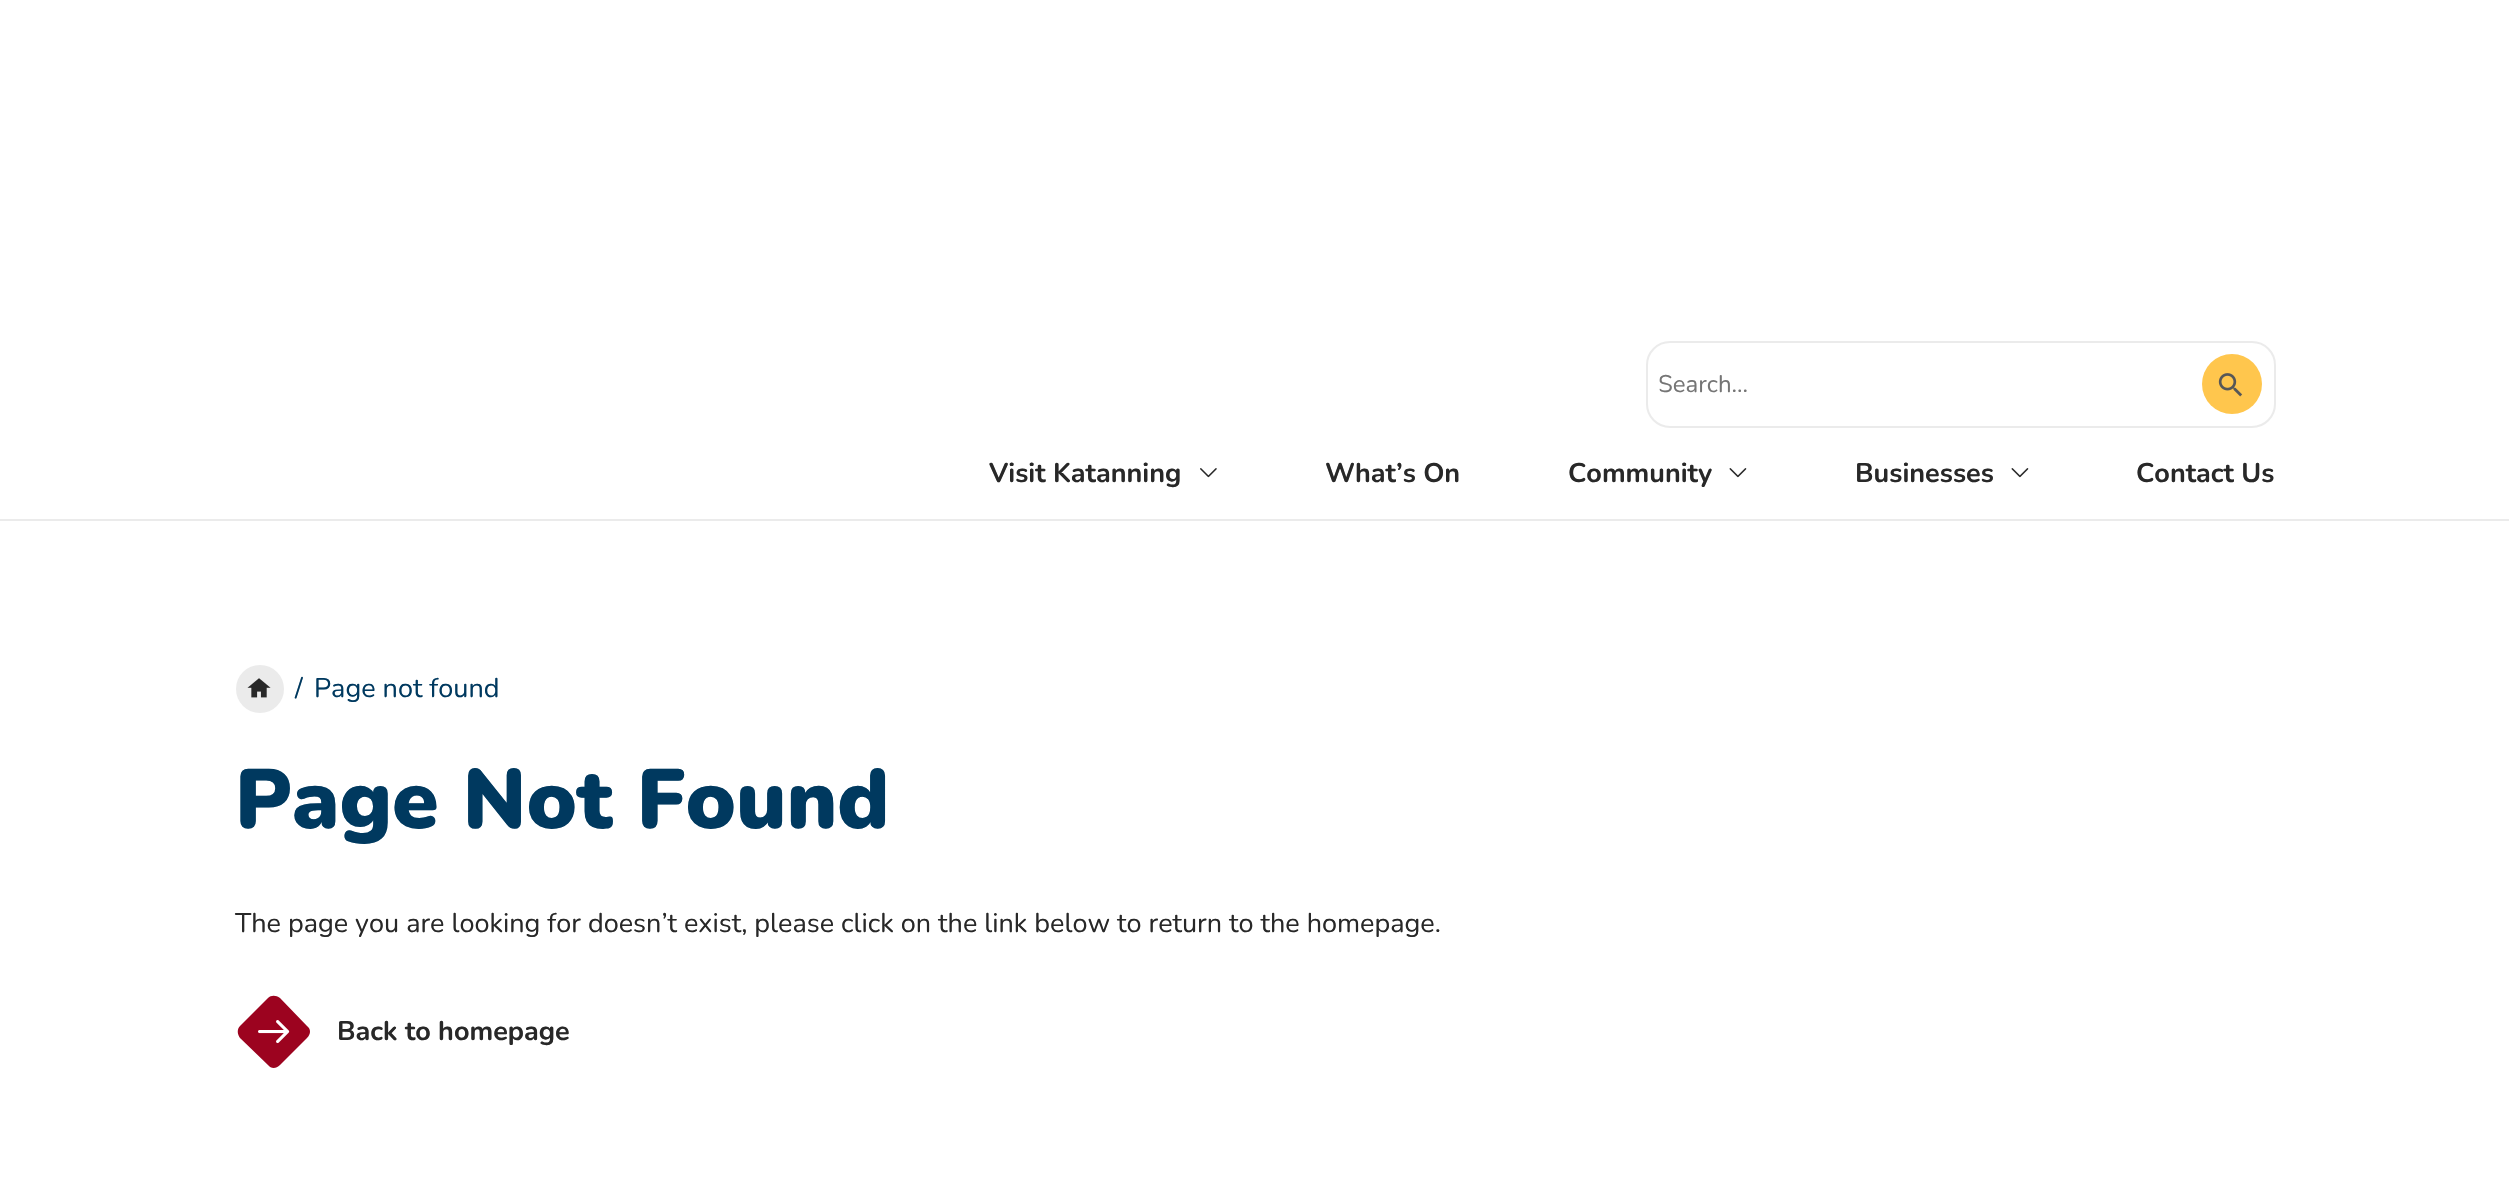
void draw(SkCanvas* c) {
SkPaint p;
p.setAntiAlias(true);
auto F=[&](const char* family, int weight, float size, bool italic = false){SkFontStyle style(weight, SkFontStyle::kNormal_Width,italic ? SkFontStyle::kItalic_Slant : SkFontStyle::kUpright_Slant);SkFont result(fontMgr->matchFamilyStyle(family, style), size);result.setSubpixel(true);return result;};
auto T=[&](const char* s, float x, float y, const SkFont& font){c->drawString(s, x, y, font, p);};
auto R=[&](float x, float y, float w, float h){c->drawRect(SkRect::MakeXYWH(x, y, w, h), p);};
auto I=[&](const char* path, float x, float y, float w, float h){auto image = SkImages::DeferredFromEncodedData(SkData::MakeFromFileName(path));c->drawImageRect(image, SkRect::MakeXYWH(x, y, w, h), SkSamplingOptions());};
auto P=[&](const char* data, bool evenOdd = false){SkPath result = *SkParsePath::FromSVGString(data);if (evenOdd) result.setFillType(SkPathFillType::kEvenOdd);return result;};
c->clear(0xffffffff);
p.setColor(0xffebebeb);
R(0,519,2509,2);
p.setStroke(true);
p.setStrokeWidth(2);
c->drawRoundRect(SkRect::MakeXYWH(1647,342,628,85),23,23,p);
c->save();
c->clipPath(P("M1686 357h489c15 0 27 12 27 27c0 15-12 27-27 27h-489c-15 0-27-12-27-27c0-15 12-27 27-27z"),true);
auto f1 = F("Nunito",400,24);
p.setStroke(false);
p.setColor(0xff757575);
T("Search...",1658,392,f1);
c->restore();
p.setColor(0xffffc64d);
c->drawCircle(2232,384,30,p);
I("1.png",2218,373,25,24);
auto f2 = F("Nunito",700,27);
p.setColor(0xff282828);
T("Visit Katanning",989,482,f2);
I("2.png",1200,468,17,10);
T("What’s On",1325,482,f2);
T("Community",1568,482,f2);
I("3.png",1729,468,18,10);
T("Businesses",1855,482,f2);
I("3.png",2011,468,18,10);
T("Contact Us",2136,482,f2);
p.setColor(0xffebebeb);
c->drawCircle(260,689,24,p);
I("4.png",247,678,24,20);
auto f3 = F("Nunito",400,27);
p.setColor(0xff00395f);
T("/",295,697,f3);
T("Page not found",314,697,f3);
auto f4 = F("Nunito",900,84);
T("Page Not Found",235,828,f4);
p.setColor(0xff282828);
T("The page you are looking for doesn’t exist, please click on the link below to return to the homepage.",235,932,f3);
p.setColor(0xff9c031f);
c->drawPath(P("M240 1026l28-28c3-3 8-3 12 0l27 28c4 3 4 8 0 12l-27 27c-4 4-9 4-12 0l-28-27c-3-4-3-9 0-12z"),p);
I("5.png",258,1020,32,24);
p.setColor(0xff282828);
T("Back to homepage",337,1040,f2);
}
